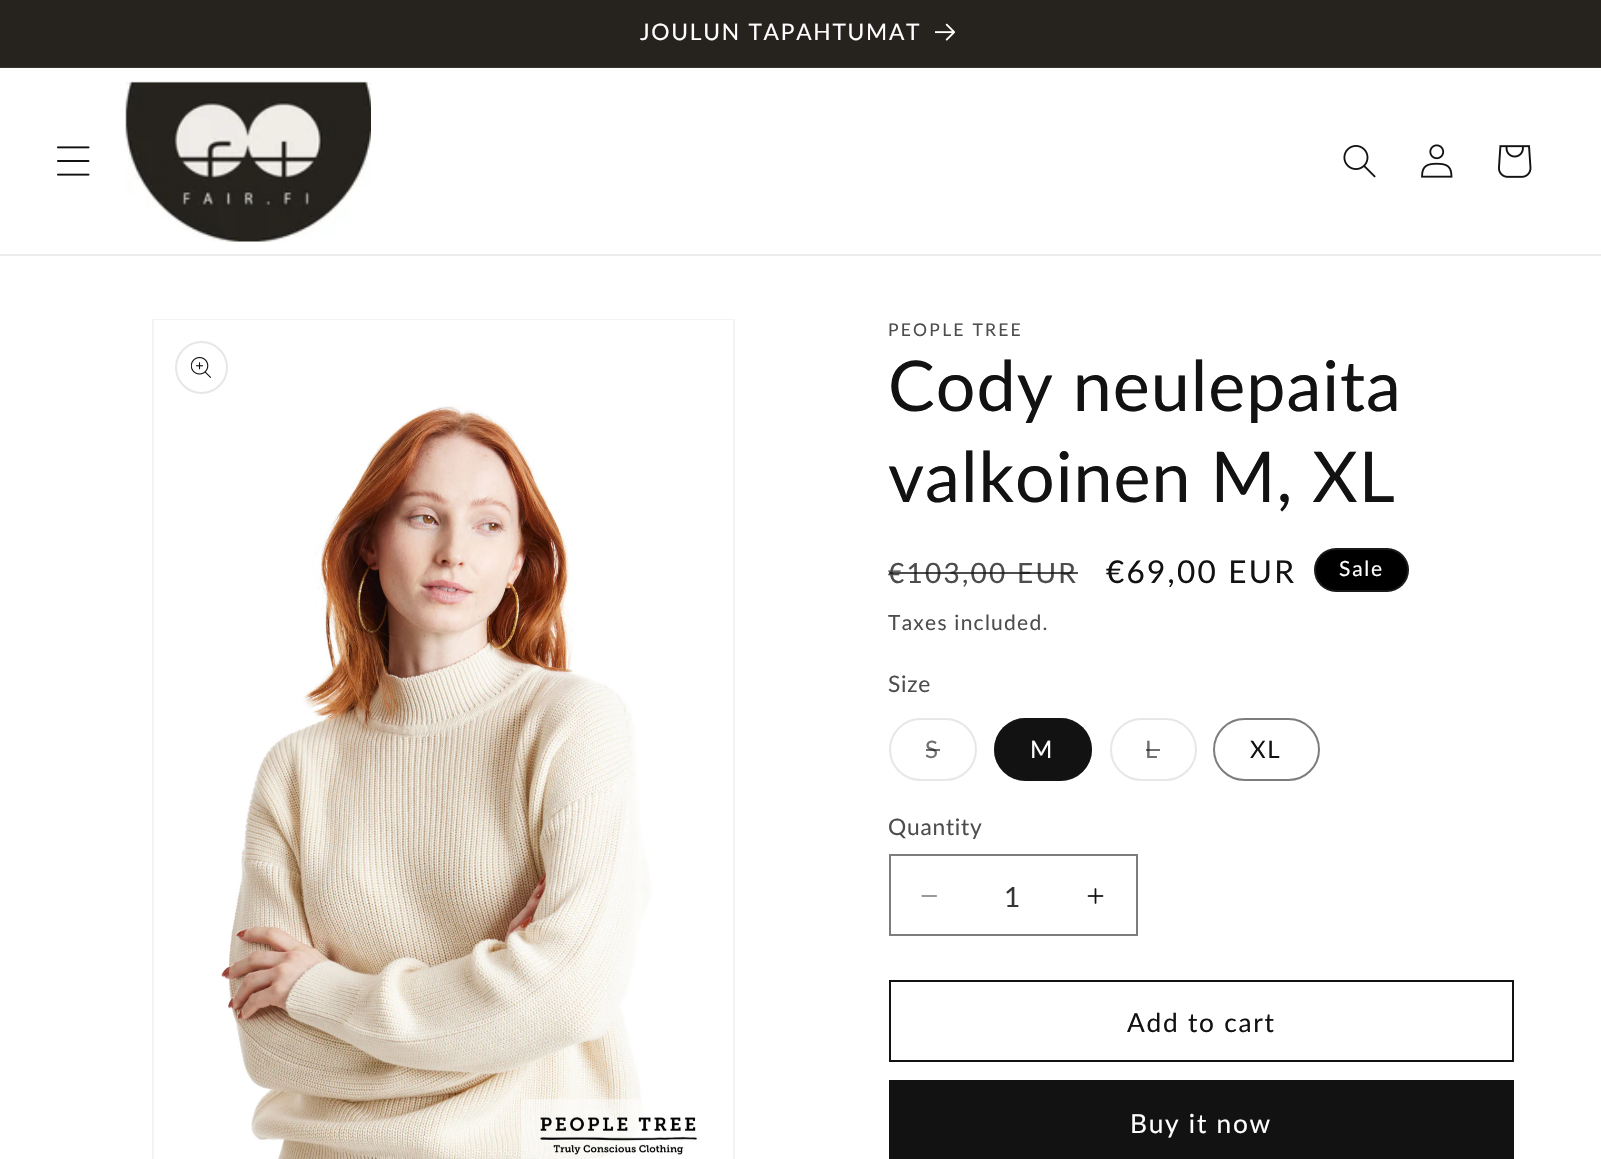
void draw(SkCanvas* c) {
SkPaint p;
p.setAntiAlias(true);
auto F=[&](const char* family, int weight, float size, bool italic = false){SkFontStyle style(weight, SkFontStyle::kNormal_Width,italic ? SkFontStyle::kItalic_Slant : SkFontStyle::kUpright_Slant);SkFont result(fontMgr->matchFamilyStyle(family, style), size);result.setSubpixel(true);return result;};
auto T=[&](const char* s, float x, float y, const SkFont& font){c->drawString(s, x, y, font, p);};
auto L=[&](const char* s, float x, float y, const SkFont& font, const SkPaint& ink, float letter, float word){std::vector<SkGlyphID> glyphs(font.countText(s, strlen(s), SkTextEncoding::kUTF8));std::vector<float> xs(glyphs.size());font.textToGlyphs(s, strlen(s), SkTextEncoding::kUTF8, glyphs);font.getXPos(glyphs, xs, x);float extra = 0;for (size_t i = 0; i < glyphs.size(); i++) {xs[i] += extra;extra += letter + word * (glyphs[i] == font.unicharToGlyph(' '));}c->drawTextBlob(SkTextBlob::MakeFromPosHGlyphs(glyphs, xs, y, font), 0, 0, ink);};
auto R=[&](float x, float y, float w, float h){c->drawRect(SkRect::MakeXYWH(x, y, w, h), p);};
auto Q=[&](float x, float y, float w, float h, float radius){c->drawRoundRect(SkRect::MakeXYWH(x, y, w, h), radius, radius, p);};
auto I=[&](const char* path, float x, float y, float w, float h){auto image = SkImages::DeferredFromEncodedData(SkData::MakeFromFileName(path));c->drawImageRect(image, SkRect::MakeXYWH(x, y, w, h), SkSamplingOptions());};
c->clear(0xffffffff);
{
const SkColor colors[] = {0xff26231e,0xffdd2739};
const float stops[] = {1,1};
SkMatrix m = SkMatrix::Translate(801,580).preScale(1132,820);
p.setShader(SkGradientShader::MakeRadial({0, 0}, 1, colors, stops, 2, SkTileMode::kClamp, 0, &m));
p.setAlpha(255);
}
R(0,0,1601,67);
{
const SkColor colors[] = {0xff373530,0xffe03849};
const float stops[] = {1,1};
SkMatrix m = SkMatrix::Translate(801,580).preScale(1132,820);
p.setShader(SkGradientShader::MakeRadial({0, 0}, 1, colors, stops, 2, SkTileMode::kClamp, 0, &m));
p.setAlpha(255);
}
R(0,67,1601,1);
auto f1 = F("Lato",400,22.75);
p.setShader(nullptr);
p.setColor(0xffffffff);
L("JOULUN TAPAHTUMAT",640,40,f1,p,1.75,0);
I("1.png",935,23,21,18);
p.setColor(0xffececec);
R(0,254,1601,2);
I("2.png",57,146,33,30);
I("3.png",125,81,246,161);
I("4.png",1343,145,33,33);
I("5.png",1421,144,32,34);
I("6.png",1498,145,34,33);
p.setStroke(true);
p.setStrokeWidth(2);
p.setColor(0xfff3f3f3);
c->drawRect(SkRect::MakeXYWH(153,320,581,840),p);
I("7.png",154,320,579,839);
p.setColor(0xffe7e7e7);
c->drawCircle(201.5,367.5,25.5,p);
I("8.png",191,357,20,21);
auto f2 = F("Lato",400,17.5);
p.setStroke(false);
p.setColor(0xff4d4d4d);
L("PEOPLE TREE",888,336,f2,p,2.25,0);
auto f3 = F("Lato",400,70);
p.setColor(0xff121212);
L("Cody neulepaita",888,411,f3,p,1,0);
L("valkoinen M, XL",888,502,f3,p,1,0);
auto f4 = F("Lato",400,28);
p.setColor(0xff4d4d4d);
L("€103,00 EUR",888,583,f4,p,2.25,0);
p.setColor(0xbf121212);
R(889,572,189,2);
auto f5 = F("Lato",400,31.5);
p.setColor(0xff121212);
L("€69,00 EUR",1106,583,f5,p,2.25,0);
p.setColor(0xff000000);
Q(1314,548,95,44,22);
p.setStroke(true);
p.setColor(0x1affffff);
c->drawRoundRect(SkRect::MakeXYWH(1315,549,93,42),21,21,p);
auto f6 = F("Lato",400,21);
p.setStroke(false);
p.setColor(0xffffffff);
L("Sale",1339,576,f6,p,1.75,0);
p.setColor(0xff4d4d4d);
L("Taxes included.",888,630,f6,p,1.25,0);
L("Size",888,692,f1,p,.75,0);
p.setStroke(true);
p.setColor(0xffe7e7e7);
c->drawRoundRect(SkRect::MakeXYWH(890,719,86,61),30.5,30.5,p);
auto f7 = F("Lato",400,24);
p.setStroke(false);
p.setColor(0xff717171);
L("S",925,758,f7,p,1.75,0);
p.setColor(0x99121212);
R(926,749,14,2);
p.setColor(0xff121212);
Q(994,718,98,63,31.5);
p.setStroke(true);
p.setColor(0x8c121212);
c->drawRoundRect(SkRect::MakeXYWH(995,719,96,61),30.5,30.5,p);
p.setStroke(false);
p.setColor(0xffffffff);
L("M",1030,758,f7,p,1.75,0);
p.setStroke(true);
p.setColor(0xffe7e7e7);
c->drawRoundRect(SkRect::MakeXYWH(1111,719,85,61),30.5,30.5,p);
p.setStroke(false);
p.setColor(0xff717171);
L("L",1145,758,f7,p,1.75,0);
p.setColor(0x99121212);
R(1146,749,14,2);
p.setStroke(true);
p.setColor(0xff7d7d7d);
c->drawRoundRect(SkRect::MakeXYWH(1214,719,105,61),30.5,30.5,p);
p.setStroke(false);
p.setColor(0xff121212);
L("XL",1250,758,f7,p,1.75,0);
p.setColor(0xff4d4d4d);
L("Quantity",888,835,f1,p,.75,0);
I("9.png",921,895,16,2);
I("10.png",1087,888,17,16);
p.setStroke(true);
p.setColor(0xff7d7d7d);
c->drawRect(SkRect::MakeXYWH(890,855,247,80),p);
p.setStroke(false);
p.setColor(0xff363636);
T("1",1004,907,f4);
p.setStroke(true);
p.setColor(0xff121212);
c->drawRect(SkRect::MakeXYWH(890,981,623,80),p);
auto f8 = F("Lato",400,26.25);
p.setStroke(false);
L("Add to cart",1127,1032,f8,p,1.75,0);
R(889,1080,625,79);
p.setColor(0xffffffff);
L("Buy it now",1130,1133,f8,p,1.75,0);
}
